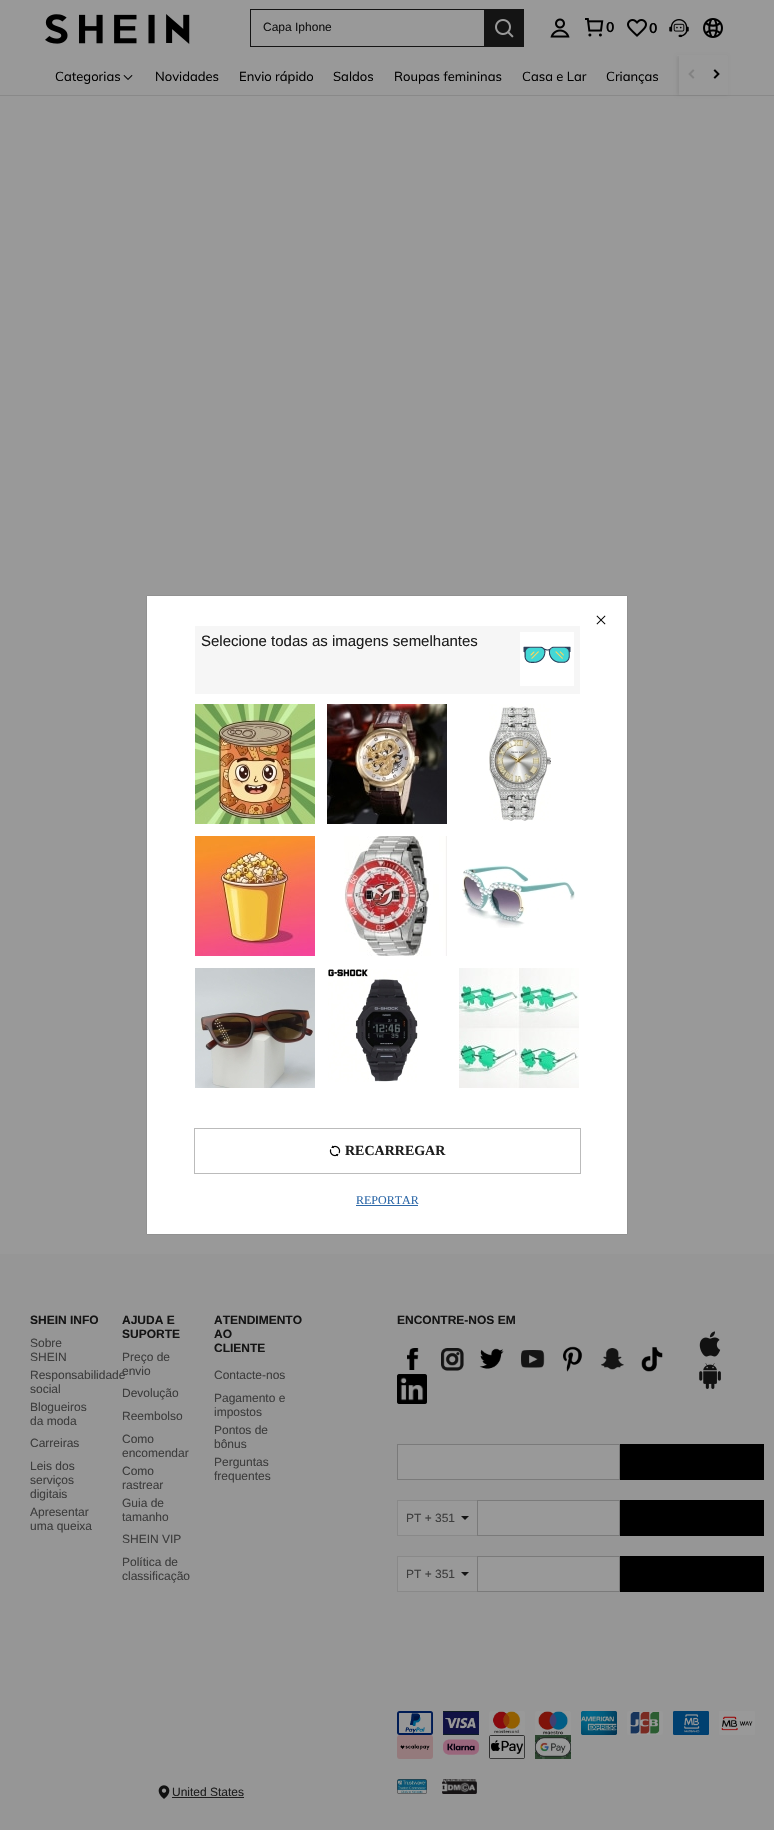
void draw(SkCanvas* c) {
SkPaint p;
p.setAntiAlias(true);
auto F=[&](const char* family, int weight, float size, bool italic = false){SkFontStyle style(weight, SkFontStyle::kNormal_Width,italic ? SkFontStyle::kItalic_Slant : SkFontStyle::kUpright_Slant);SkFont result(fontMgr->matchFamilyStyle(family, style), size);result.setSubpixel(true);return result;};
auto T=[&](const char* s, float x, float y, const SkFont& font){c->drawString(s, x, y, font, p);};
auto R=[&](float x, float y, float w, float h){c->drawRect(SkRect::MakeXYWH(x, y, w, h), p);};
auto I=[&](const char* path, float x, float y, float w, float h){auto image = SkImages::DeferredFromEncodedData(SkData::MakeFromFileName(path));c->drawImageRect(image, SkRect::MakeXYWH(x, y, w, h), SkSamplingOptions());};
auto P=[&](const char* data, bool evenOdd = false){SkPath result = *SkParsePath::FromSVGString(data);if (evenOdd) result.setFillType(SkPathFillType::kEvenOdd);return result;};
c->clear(0xff999999);
p.setColor(0xff898989);
R(0,95,774,1);
p.setColor(0x14000000);
p.setMaskFilter(SkMaskFilter::MakeBlur(kNormal_SkBlurStyle, 1.5));
c->drawRect(SkRect::MakeXYWH(677,56,50,39),p);
p.setMaskFilter(nullptr);
p.setColor(0xff999999);
R(677,55,50,1);
I("1.png",45,14,145,30);
p.setColor(0xff141414);
R(250,9,234,1);
R(250,46,234,1);
R(250,9,1,38);
auto f1 = F("Liberation Sans",400,12);
T("Capa Iphone",263,31,f1);
R(484,9,40,38);
I("2.png",495,19,19,19);
I("3.png",550,18,20,20);
I("4.png",585,18,19,19);
auto f2 = F("Muli",700,14);
p.setColor(0xff000000);
T("0",606,32,f2);
I("5.png",627,19,20,18);
T("0",649,33,f2);
I("6.png",669,19,20,19);
I("7.png",703,18,20,20);
auto f3 = F("Muli",400,13);
T("Categorias",55,81,f3);
I("8.png",123,75,10,5);
T("Novidades",155,81,f3);
T("Envio rápido",239,81,f3);
T("Saldos",333,81,f3);
T("Roupas femininas",394,81,f3);
T("Casa e Lar",522,81,f3);
T("Crianças",606,81,f3);
p.setColor(0xff999999);
R(679,56,49,39);
I("9.png",688,69,7,10);
I("10.png",713,69,7,10);
p.setColor(0xff969696);
R(0,1254,774,576);
auto f4 = F("Liberation Sans",700,12);
p.setColor(0xff141414);
T("SHEIN INFO",30,1324,f4);
p.setColor(0xff3d3d3d);
T("Sobre",30,1347,f1);
T("SHEIN",30,1361,f1);
T("Responsabilidade",30,1379,f1);
T("social",30,1393,f1);
T("Blogueiros",30,1411,f1);
T("da moda",30,1425,f1);
T("Carreiras",30,1447,f1);
T("Leis dos",30,1470,f1);
T("serviços",30,1484,f1);
T("digitais",30,1498,f1);
T("Apresentar",30,1516,f1);
T("uma queixa",30,1530,f1);
p.setColor(0xff141414);
T("AJUDA E",122,1324,f4);
T("SUPORTE",122,1338,f4);
p.setColor(0xff3d3d3d);
T("Preço de",122,1361,f1);
T("envio",122,1375,f1);
T("Devolução",122,1397,f1);
T("Reembolso",122,1420,f1);
T("Como",122,1443,f1);
T("encomendar",122,1457,f1);
T("Como",122,1475,f1);
T("rastrear",122,1489,f1);
T("Guia de",122,1507,f1);
T("tamanho",122,1521,f1);
T("SHEIN VIP",122,1543,f1);
T("Política de",122,1566,f1);
T("classificação",122,1580,f1);
p.setColor(0xff141414);
T("ATENDIMENTO",214,1324,f4);
T("AO",214,1338,f4);
T("CLIENTE",214,1352,f4);
p.setColor(0xff3d3d3d);
T("Contacte-nos",214,1379,f1);
T("Pagamento e",214,1402,f1);
T("impostos",214,1416,f1);
T("Pontos de",214,1434,f1);
T("bônus",214,1448,f1);
T("Perguntas",214,1466,f1);
T("frequentes",214,1480,f1);
p.setColor(0xff141414);
T("ENCONTRE-NOS EM",397,1324,f4);
I("11.png",407,1348,12,22);
I("12.png",441,1348,23,23);
I("13.png",479,1348,25,21);
I("14.png",521,1350,24,18);
I("15.png",563,1346,20,26);
I("16.png",601,1348,23,22);
I("17.png",641,1347,22,25);
I("18.png",397,1374,30,30);
I("19.png",699,1331,22,26);
I("20.png",699,1363,22,26);
p.setColor(0xff999999);
c->drawRect(SkRect::MakeXYWH(397.5,1444.5,222,35),p);
p.setStroke(true);
p.setStrokeWidth(1);
p.setColor(0xff7a7a7a);
c->drawRect(SkRect::MakeXYWH(397.5,1444.5,222,35),p);
p.setStroke(false);
p.setColor(0xff000000);
R(620,1444,144,36);
p.setColor(0xff999999);
R(398,1501,79,34);
p.setColor(0xff898989);
R(397,1500,80,1);
R(397,1535,80,1);
R(397,1500,1,36);
p.setColor(0xff3d3d3d);
T("PT + 351",406,1522,f1);
p.setColor(0xff141414);
c->drawPath(P("M461 1516h8l-4 4z"),p);
p.setColor(0xff999999);
c->drawRect(SkRect::MakeXYWH(477.5,1500.5,142,35),p);
p.setStroke(true);
p.setColor(0xff7a7a7a);
c->drawRect(SkRect::MakeXYWH(477.5,1500.5,142,35),p);
p.setStroke(false);
p.setColor(0xff000000);
R(620,1500,144,36);
p.setColor(0xff999999);
R(398,1557,79,34);
p.setColor(0xff898989);
R(397,1556,80,1);
R(397,1591,80,1);
R(397,1556,1,36);
p.setColor(0xff3d3d3d);
T("PT + 351",406,1578,f1);
p.setColor(0xff141414);
c->drawPath(P("M461 1572h8l-4 4z"),p);
p.setColor(0xff999999);
c->drawRect(SkRect::MakeXYWH(477.5,1556.5,142,35),p);
p.setStroke(true);
p.setColor(0xff7a7a7a);
c->drawRect(SkRect::MakeXYWH(477.5,1556.5,142,35),p);
p.setStroke(false);
p.setColor(0xff000000);
R(620,1556,144,36);
I("21.png",397,1711,36,24);
I("22.png",443,1711,36,24);
I("23.png",489,1711,36,24);
I("24.png",535,1711,36,24);
I("25.png",581,1711,36,24);
I("26.png",627,1711,36,24);
I("27.png",673,1711,36,24);
I("28.png",719,1711,36,24);
I("29.png",397,1735,36,24);
I("30.png",443,1739,36,16);
I("31.png",489,1735,36,24);
I("32.png",535,1735,36,24);
I("33.png",158,1785,12,14);
p.setColor(0xff1e1e1e);
T("United States",172,1796,f1);
R(172,1797,72,1);
I("34.png",397,1779,30,15);
I("35.png",442,1779,35,15);
p.setColor(0x4d000000);
p.setMaskFilter(SkMaskFilter::MakeBlur(kNormal_SkBlurStyle, .5));
c->drawRect(SkRect::MakeXYWH(147,596,480,638),p);
p.setMaskFilter(nullptr);
p.setColor(0xffffffff);
R(147,596,480,638);
I("36.png",596,615,10,10);
p.setColor(0xfff6f6f6);
R(195,626,385,68);
auto f5 = F("Liberation Sans",400,15);
p.setColor(0xff1e1e1e);
T("Selecione todas as imagens semelhantes",201,646,f5);
p.setColor(0xffffffff);
R(520,632,54,54);
I("37.png",523,646,48,17);
I("38.png",195,704,120,120);
I("39.png",327,704,120,120);
I("40.png",489,704,62,117);
I("41.png",195,836,120,120);
I("42.png",344,836,103,120);
I("43.png",462,865,113,63);
I("44.png",195,968,120,120);
I("45.png",328,969,90,113);
I("46.png",459,968,120,120);
p.setStroke(true);
p.setColor(0xffbbbbbb);
c->drawRect(SkRect::MakeXYWH(194.5,1128.5,386,45),p);
I("47.png",329,1145,12,12);
auto f6 = F("Liberation Serif",700,14);
p.setStroke(false);
p.setColor(0xff1e1e1e);
T("RECARREGAR",345,1155,f6);
auto f7 = F("Liberation Serif",400,12);
p.setColor(0xff2d68a8);
T("REPORTAR",356,1204,f7);
R(356,1205,62,1);
}
